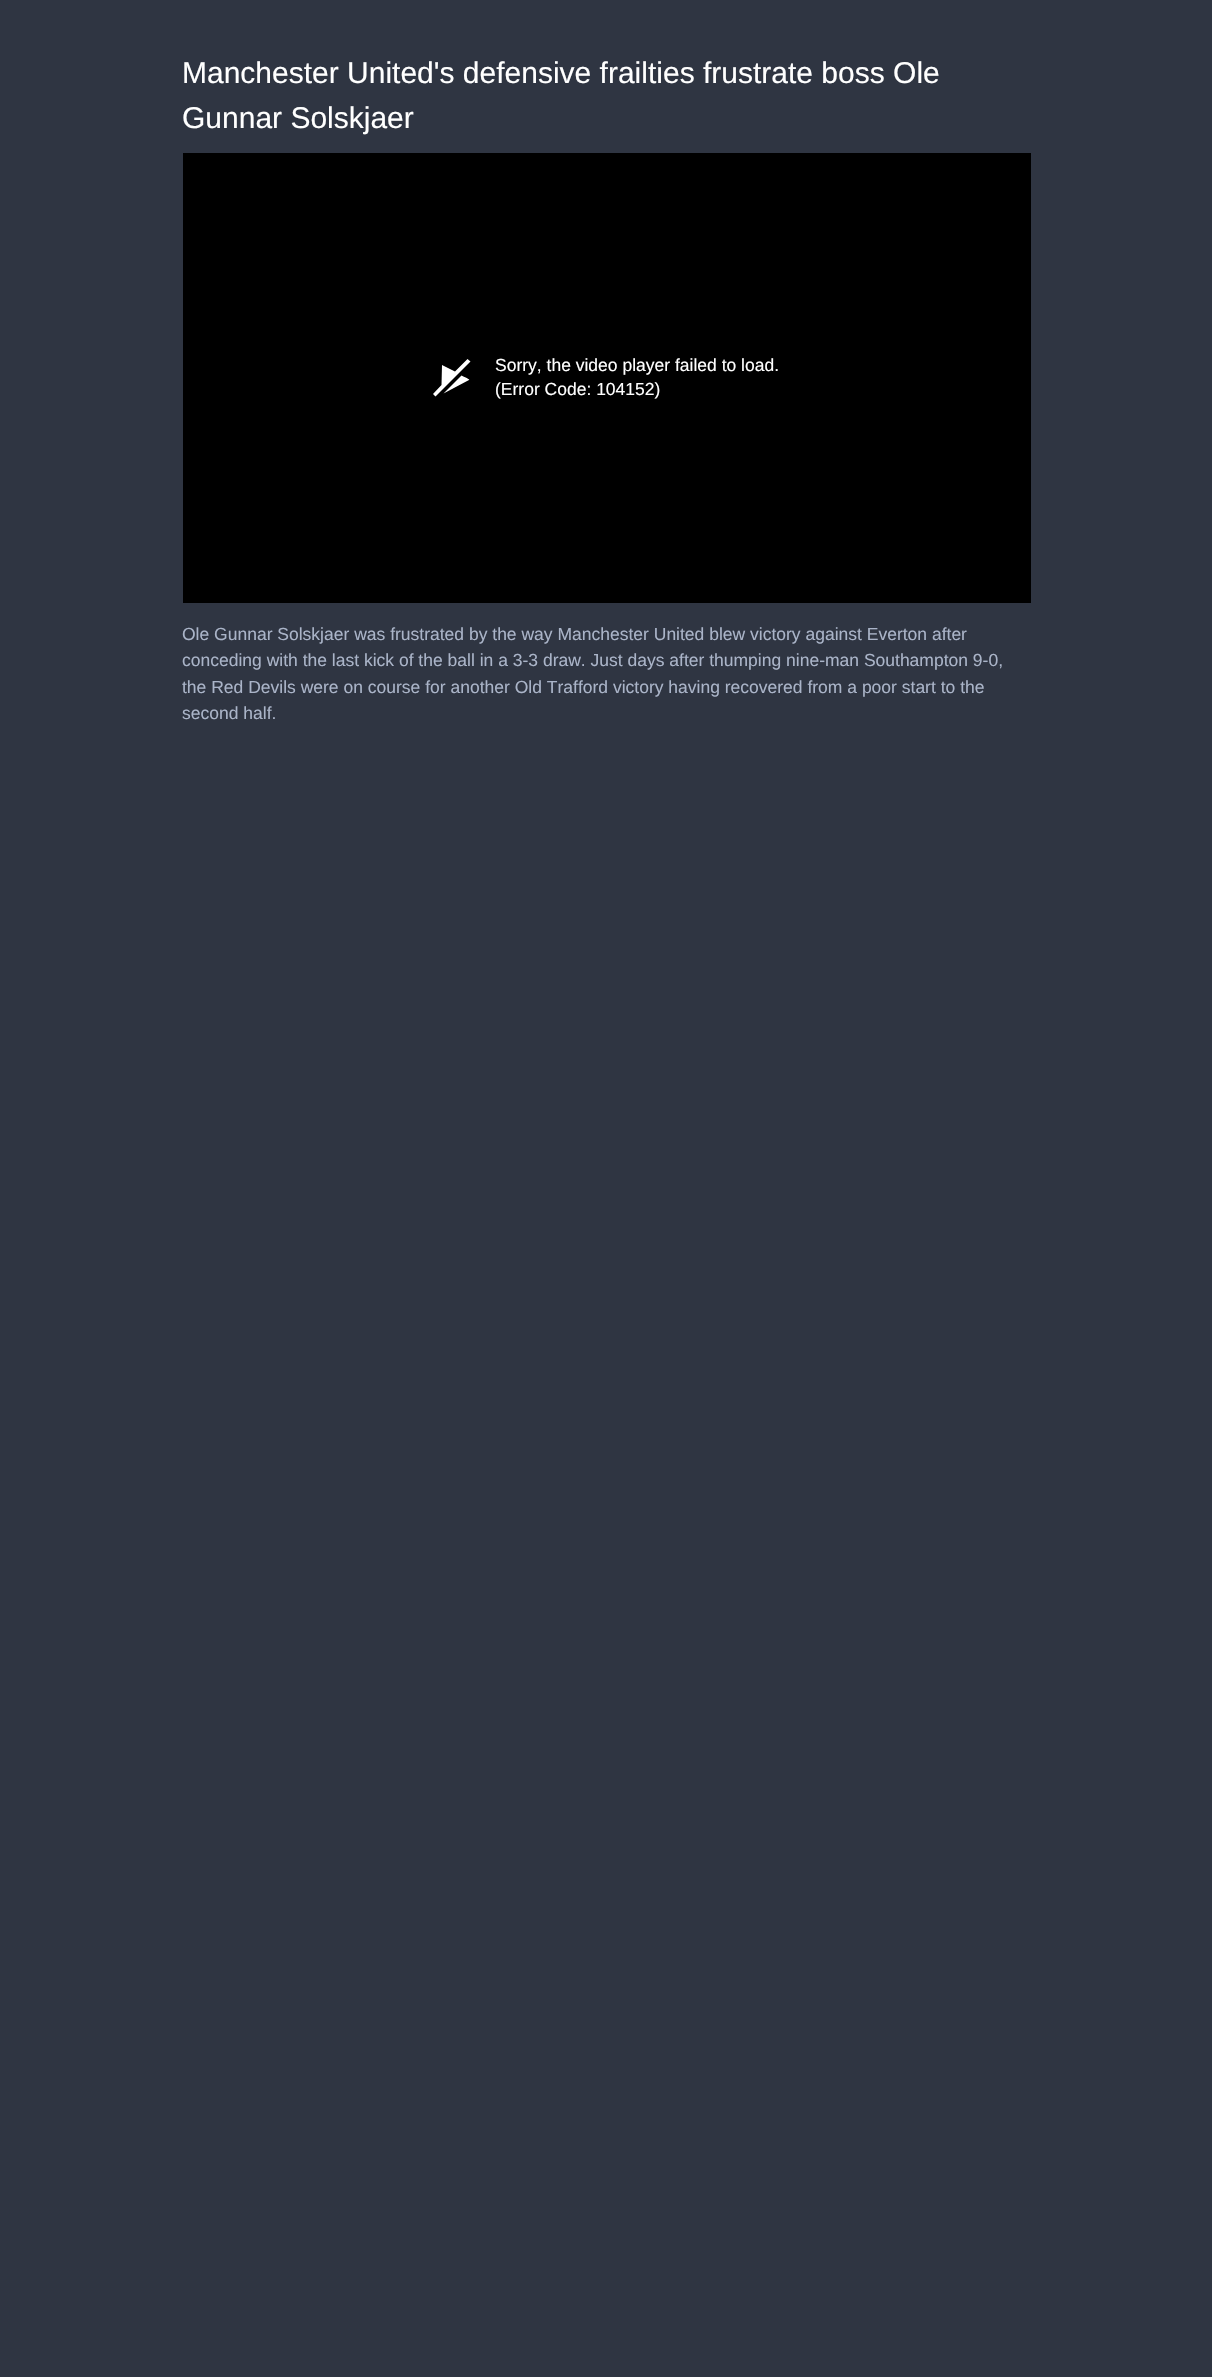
void draw(SkCanvas* c) {
SkPaint p;
p.setAntiAlias(true);
auto F=[&](const char* family, int weight, float size, bool italic = false){SkFontStyle style(weight, SkFontStyle::kNormal_Width,italic ? SkFontStyle::kItalic_Slant : SkFontStyle::kUpright_Slant);SkFont result(fontMgr->matchFamilyStyle(family, style), size);result.setSubpixel(true);return result;};
auto T=[&](const char* s, float x, float y, const SkFont& font){c->drawString(s, x, y, font, p);};
auto R=[&](float x, float y, float w, float h){c->drawRect(SkRect::MakeXYWH(x, y, w, h), p);};
auto P=[&](const char* data, bool evenOdd = false){SkPath result = *SkParsePath::FromSVGString(data);if (evenOdd) result.setFillType(SkPathFillType::kEvenOdd);return result;};
c->clear(0xff2f3542);
auto f1 = F("Liberation Sans",400,30);
p.setColor(0xffffffff);
T("Manchester United's defensive frailties frustrate boss Ole",182,83,f1);
T("Gunnar Solskjaer",182,128,f1);
p.setColor(0xff000000);
R(183,153,848,450);
p.setColor(0xffffffff);
c->drawPath(P("M469 380l-25.5 13.5l18-18c7 3.5 8.5 4 7.5 4.5zm-1.5-21l-12.5 12.5l-13-6.5l-.5 20l-8.5 9l2.5 2.5l35-35z"),p);
auto f2 = F("Liberation Sans",400,17.5);
T("Sorry, the video player failed to load.",495,371,f2);
T("(Error Code: 104152)",495,395,f2);
p.setColor(0xffaab4c8);
T("Ole Gunnar Solskjaer was frustrated by the way Manchester United blew victory against Everton after",182,640,f2);
T("conceding with the last kick of the ball in a 3-3 draw. Just days after thumping nine-man Southampton 9-0,",182,666,f2);
T("the Red Devils were on course for another Old Trafford victory having recovered from a poor start to the",182,693,f2);
T("second half.",182,719,f2);
}
